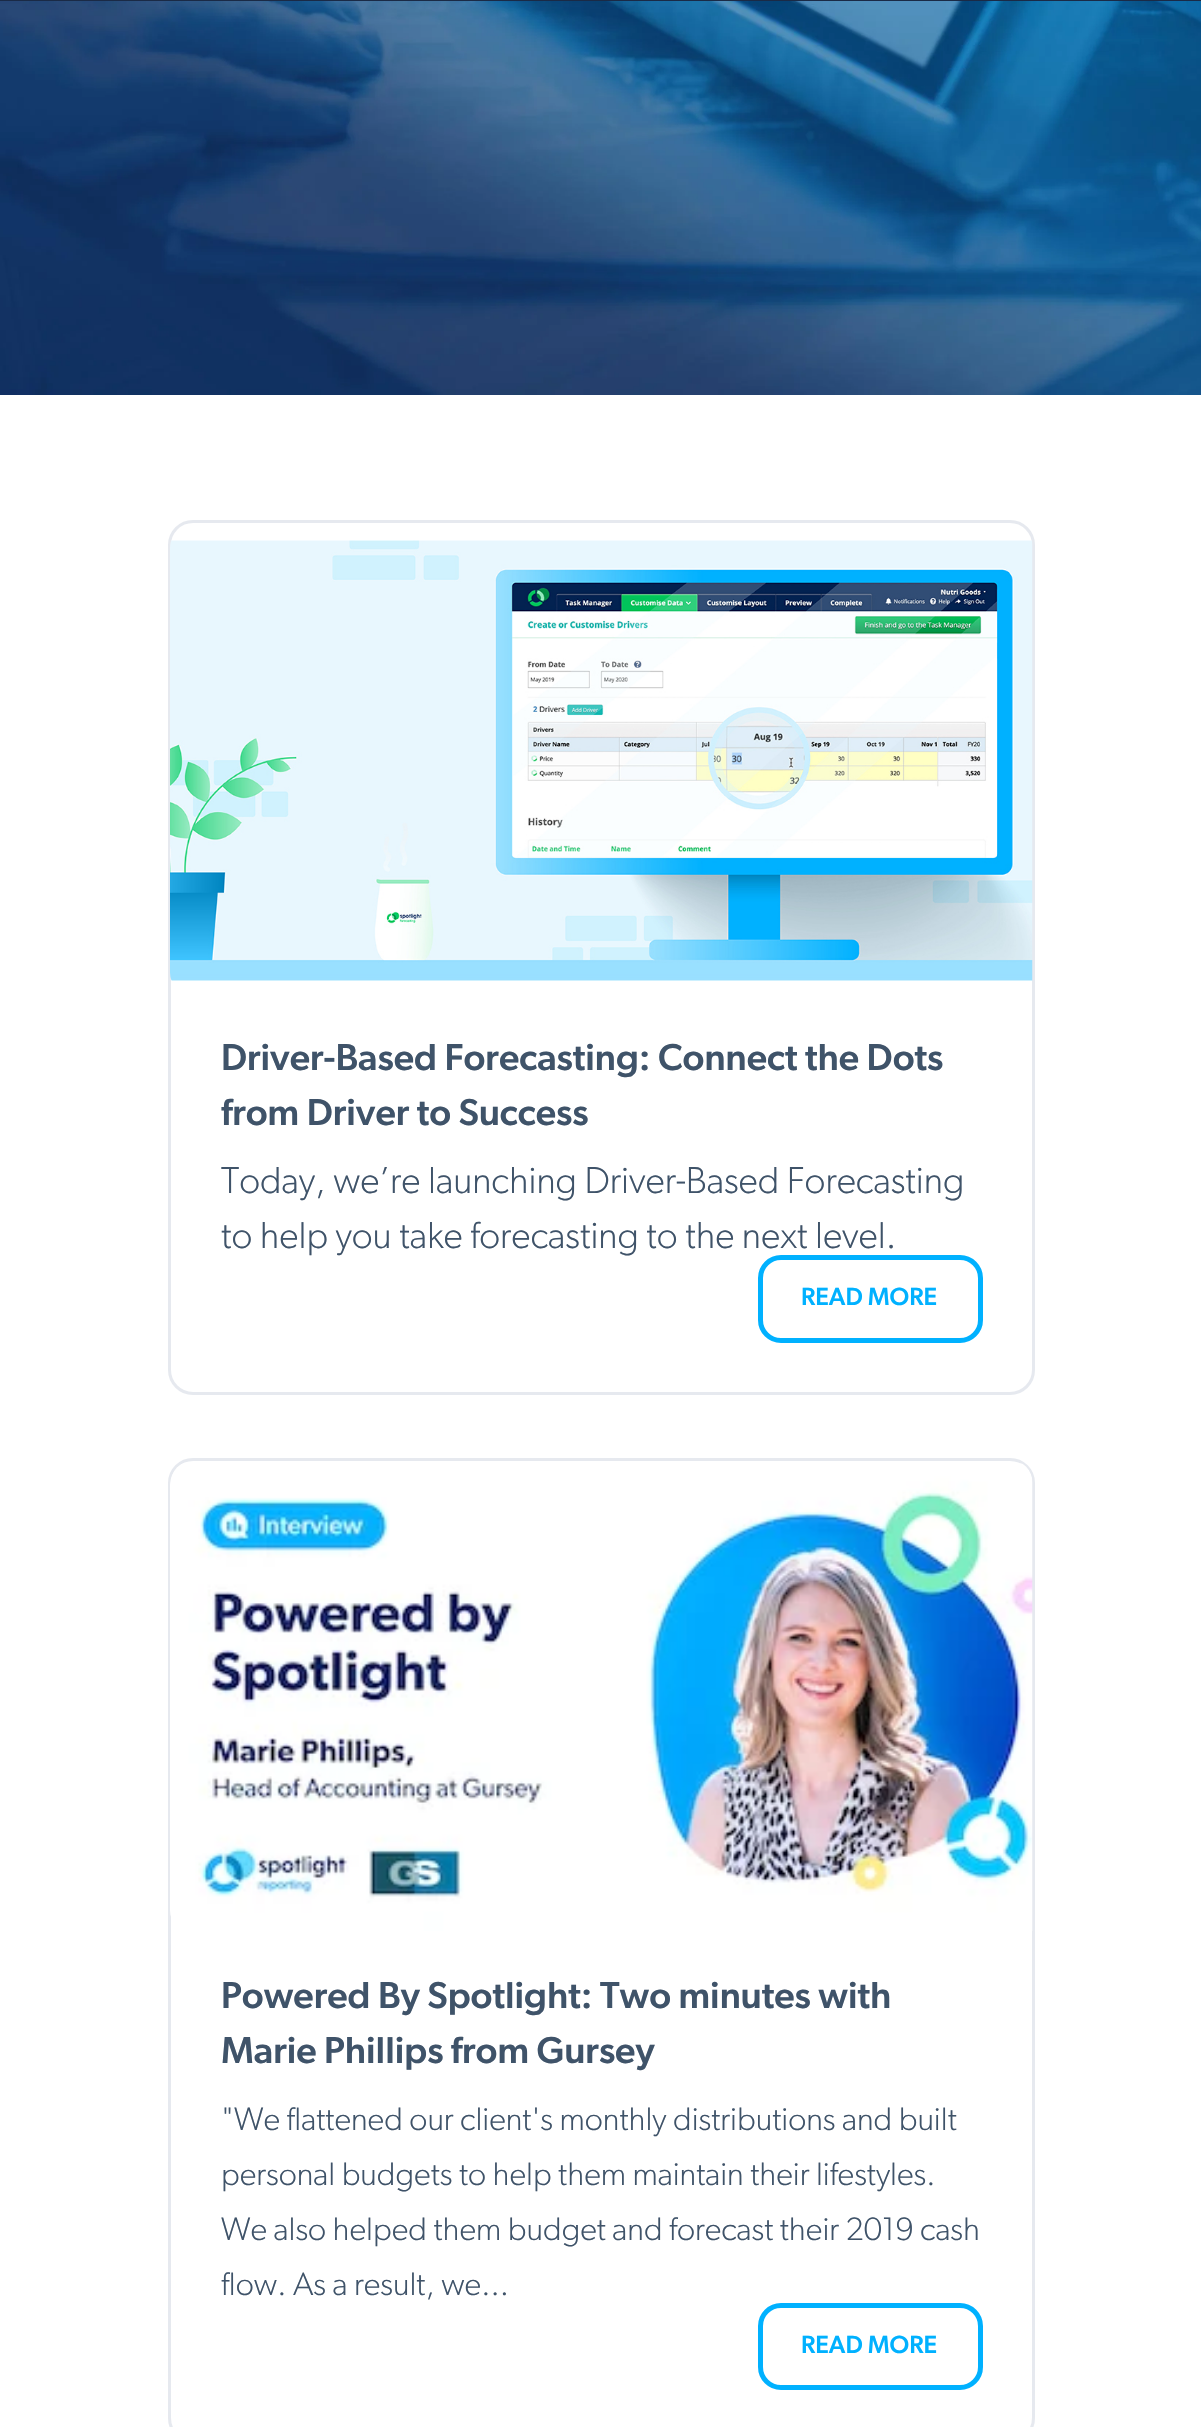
void draw(SkCanvas* c) {
SkPaint p;
p.setAntiAlias(true);
auto F=[&](const char* family, int weight, float size, bool italic = false){SkFontStyle style(weight, SkFontStyle::kNormal_Width,italic ? SkFontStyle::kItalic_Slant : SkFontStyle::kUpright_Slant);SkFont result(fontMgr->matchFamilyStyle(family, style), size);result.setSubpixel(true);return result;};
auto T=[&](const char* s, float x, float y, const SkFont& font){c->drawString(s, x, y, font, p);};
auto R=[&](float x, float y, float w, float h){c->drawRect(SkRect::MakeXYWH(x, y, w, h), p);};
auto I=[&](const char* path, float x, float y, float w, float h){auto image = SkImages::DeferredFromEncodedData(SkData::MakeFromFileName(path));c->drawImageRect(image, SkRect::MakeXYWH(x, y, w, h), SkSamplingOptions());};
c->clear(0xffffffff);
p.setColor(0xff1a2a46);
R(0,0,1201,1);
I("1.png",0,1,1201,394);
p.setStroke(true);
p.setStrokeWidth(3);
p.setColor(0xffe6e9ef);
c->drawRoundRect(SkRect::MakeXYWH(169.5,521.5,864,872),23.5,23.5,p);
I("2.png",170,540,863,441);
auto f1 = F("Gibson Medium",500,37.5);
p.setStroke(false);
p.setColor(0xff3f5369);
T("Driver-Based Forecasting: Connect the Dots",221,1070,f1);
T("from Driver to Success",221,1125,f1);
auto f2 = F("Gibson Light",300,37.5);
T("Today, we’re launching Driver-Based Forecasting",221,1193,f2);
T("to help you take forecasting to the next level.",221,1248,f2);
p.setStroke(true);
p.setStrokeWidth(5);
p.setColor(0xff00b1ff);
c->drawRoundRect(SkRect::MakeXYWH(760.5,1257.5,220,83),20.5,20.5,p);
auto f3 = F("Gibson Medium",500,25);
p.setStroke(false);
T("READ MORE",801,1305,f3);
p.setStroke(true);
p.setStrokeWidth(3);
p.setColor(0xffe6e9ef);
c->drawRoundRect(SkRect::MakeXYWH(169.5,1459.5,864,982),23.5,23.5,p);
I("3.png",170,1463,863,468);
p.setStroke(false);
p.setColor(0xff3f5369);
T("Powered By Spotlight: Two minutes with",221,2008,f1);
T("Marie Phillips from Gursey",221,2063,f1);
auto f4 = F("Gibson Light",300,32.5);
T("\"We flattened our client's monthly distributions and built",221,2130,f4);
T("personal budgets to help them maintain their lifestyles.",221,2185,f4);
T("We also helped them budget and forecast their 2019 cash",221,2240,f4);
T("flow. As a result, we...",221,2295,f4);
p.setStroke(true);
p.setStrokeWidth(5);
p.setColor(0xff00b1ff);
c->drawRoundRect(SkRect::MakeXYWH(760.5,2305.5,220,82),20.5,20.5,p);
p.setStroke(false);
T("READ MORE",801,2353,f3);
}
